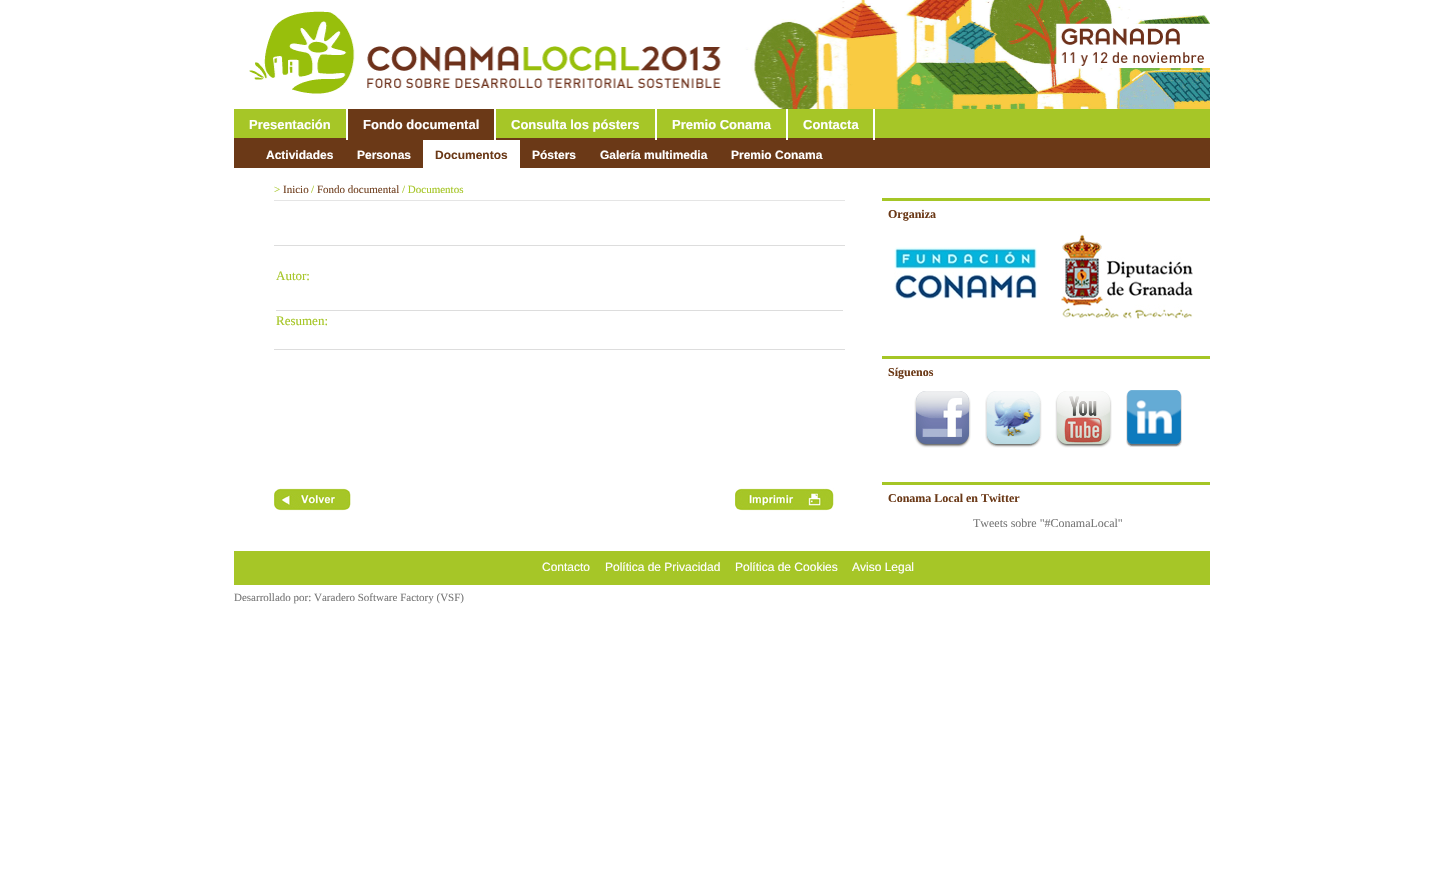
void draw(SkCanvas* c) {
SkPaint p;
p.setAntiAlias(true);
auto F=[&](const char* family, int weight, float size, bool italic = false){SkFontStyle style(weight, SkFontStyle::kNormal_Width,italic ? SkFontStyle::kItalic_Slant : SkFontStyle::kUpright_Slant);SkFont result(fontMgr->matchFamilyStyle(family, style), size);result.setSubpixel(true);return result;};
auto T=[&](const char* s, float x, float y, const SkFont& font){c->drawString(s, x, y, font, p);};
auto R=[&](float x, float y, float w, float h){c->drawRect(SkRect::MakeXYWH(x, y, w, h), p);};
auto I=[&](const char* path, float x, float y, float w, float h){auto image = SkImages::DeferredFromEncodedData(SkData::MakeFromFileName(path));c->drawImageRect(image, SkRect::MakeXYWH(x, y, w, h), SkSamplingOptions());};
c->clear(0xffffffff);
I("1.png",234,0,976,109);
p.setColor(0xffa6c627);
R(234,109,976,29);
p.setColor(0xff6b3917);
R(234,138,976,30);
p.setColor(0xffffffff);
R(346,109,2,31);
auto f1 = F("Liberation Sans",700,13);
T("Presentación",249,129,f1);
p.setColor(0xff6b3917);
R(348,109,146,29);
p.setColor(0xffffffff);
R(494,109,2,31);
T("Fondo documental",363,129,f1);
R(655,109,2,31);
T("Consulta los pósters",511,129,f1);
R(786,109,2,31);
T("Premio Conama",672,129,f1);
R(873,109,2,31);
T("Contacta",803,129,f1);
auto f2 = F("Liberation Sans",700,12);
T("Actividades",266,159,f2);
T("Personas",357,159,f2);
R(423,140,97,28);
p.setColor(0xff6b3917);
T("Documentos",435,159,f2);
p.setColor(0xffffffff);
T("Pósters",532,159,f2);
T("Galería multimedia",600,159,f2);
T("Premio Conama",731,159,f2);
p.setColor(0xffe5e5e5);
R(274,200,571,1);
auto f3 = F("Liberation Serif",400,11);
p.setColor(0xffa6c627);
T(">",274,193,f3);
p.setColor(0xff724222);
T("Inicio",283,193,f3);
p.setColor(0xffa6c627);
T("/",311,193,f3);
p.setColor(0xff724222);
T("Fondo documental",317,193,f3);
p.setColor(0xffa6c627);
T("/ Documentos",402,193,f3);
p.setColor(0xffdddddd);
R(274,245,571,1);
R(274,349,571,1);
R(276,310,567,1);
auto f4 = F("Liberation Serif",400,13);
p.setColor(0xffa6c627);
T("Autor:",276,280,f4);
T("Resumen:",276,325,f4);
I("2.png",274,488,77,23);
I("3.png",735,488,99,23);
p.setColor(0xffa5c626);
R(882,198,328,3);
auto f5 = F("Liberation Serif",700,12);
p.setColor(0xff6b3917);
T("Organiza",888,218,f5);
I("4.png",894,247,143,53);
I("5.png",1061,234,132,85);
p.setColor(0xffa5c626);
R(882,356,328,3);
p.setColor(0xff6b3917);
T("Síguenos",888,376,f5);
I("6.png",914,391,57,57);
I("7.png",985,391,57,57);
I("8.png",1055,391,57,57);
I("9.png",1126,390,56,57);
p.setColor(0xffa5c626);
R(882,482,328,3);
p.setColor(0xff6b3917);
T("Conama Local en Twitter",888,502,f5);
auto f6 = F("Liberation Serif",400,12);
p.setColor(0xff777777);
T("Tweets sobre \"#ConamaLocal\"",973,527,f6);
p.setColor(0xffa6c627);
R(234,551,976,34);
auto f7 = F("Liberation Sans",400,12);
p.setColor(0xffffffff);
T("Contacto",542,571,f7);
T("Política de Privacidad",605,571,f7);
T("Política de Cookies",735,571,f7);
T("Aviso Legal",852,571,f7);
p.setColor(0xff777777);
T("Desarrollado por: Varadero Software Factory (VSF)",234,601,f3);
}
